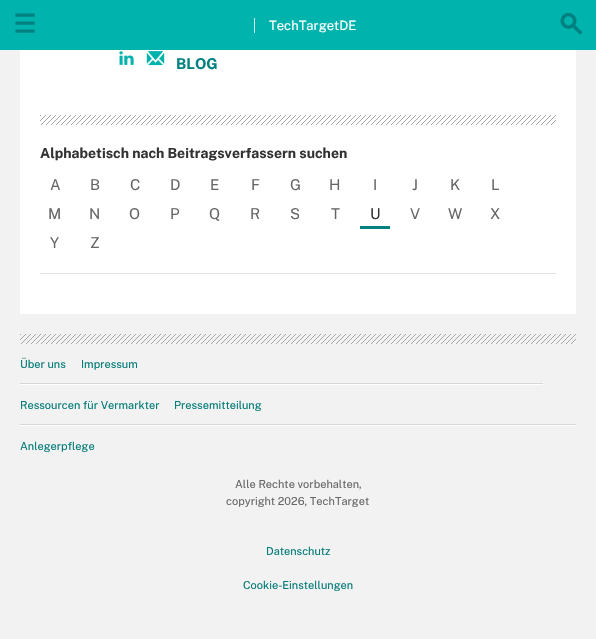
void draw(SkCanvas* c) {
SkPaint p;
p.setAntiAlias(true);
auto F=[&](const char* family, int weight, float size, bool italic = false){SkFontStyle style(weight, SkFontStyle::kNormal_Width,italic ? SkFontStyle::kItalic_Slant : SkFontStyle::kUpright_Slant);SkFont result(fontMgr->matchFamilyStyle(family, style), size);result.setSubpixel(true);return result;};
auto T=[&](const char* s, float x, float y, const SkFont& font){c->drawString(s, x, y, font, p);};
auto R=[&](float x, float y, float w, float h){c->drawRect(SkRect::MakeXYWH(x, y, w, h), p);};
auto I=[&](const char* path, float x, float y, float w, float h){auto image = SkImages::DeferredFromEncodedData(SkData::MakeFromFileName(path));c->drawImageRect(image, SkRect::MakeXYWH(x, y, w, h), SkSamplingOptions());};
c->clear(0xfff2f2f2);
p.setColor(0xff00b3ac);
R(0,0,596,50);
I("1.png",15,13,20,20);
p.setColor(0xffcef0ee);
R(254,18,1,15);
auto f1 = F("Public Sans",400,13);
p.setColor(0xffffffff);
T("TechTargetDE",269,30,f1);
I("2.png",560,12,23,23);
R(20,50,556,264);
I("3.png",119,51,15,14);
I("4.png",146,51,19,15);
auto f2 = F("Public Sans",700,15);
p.setColor(0xff008080);
T("BLOG",176,69,f2);
I("5.png",40,115,516,10);
p.setColor(0xffe3e3e3);
R(40,273,516,1);
auto f3 = F("Public Sans",700,14);
p.setColor(0xff323232);
T("Alphabetisch nach Beitragsverfassern suchen",40,158,f3);
auto f4 = F("Public Sans",400,15);
p.setColor(0xff666666);
T("A",50,190,f4);
T("B",90,190,f4);
T("C",130,190,f4);
T("D",170,190,f4);
T("E",210,190,f4);
T("F",251,190,f4);
T("G",290,190,f4);
T("H",329,190,f4);
T("I",373,190,f4);
T("J",412,190,f4);
T("K",450,190,f4);
T("L",491,190,f4);
T("M",48,219,f4);
T("N",89,219,f4);
T("O",129,219,f4);
T("P",170,219,f4);
T("Q",209,219,f4);
T("R",250,219,f4);
T("S",290,219,f4);
T("T",331,219,f4);
p.setColor(0xff008080);
R(360,226,30,3);
p.setColor(0xff323232);
T("U",370,219,f4);
p.setColor(0xff666666);
T("V",410,219,f4);
T("W",448,219,f4);
T("X",490,219,f4);
T("Y",50,248,f4);
T("Z",90,248,f4);
I("6.png",20,334,556,10);
p.setColor(0xffffffff);
R(20,384,523,1);
auto f5 = F("Public Sans",400,11);
p.setColor(0xff007a76);
T("Über uns",20,368,f5);
T("Impressum",81,368,f5);
p.setColor(0xffd7d7d7);
R(20,383,523,1);
p.setColor(0xffffffff);
R(20,425,556,1);
p.setColor(0xff007a76);
T("Ressourcen für Vermarkter",20,409,f5);
T("Pressemitteilung",174,409,f5);
p.setColor(0xffd7d7d7);
R(20,424,556,1);
p.setColor(0xff007a76);
T("Anlegerpflege",20,450,f5);
p.setColor(0xff666666);
T("Alle Rechte vorbehalten,",235,488,f5);
T("copyright 2026, TechTarget",226,505,f5);
p.setColor(0xff007a76);
T("Datenschutz",266,555,f5);
T("Cookie-Einstellungen",243,589,f5);
}
